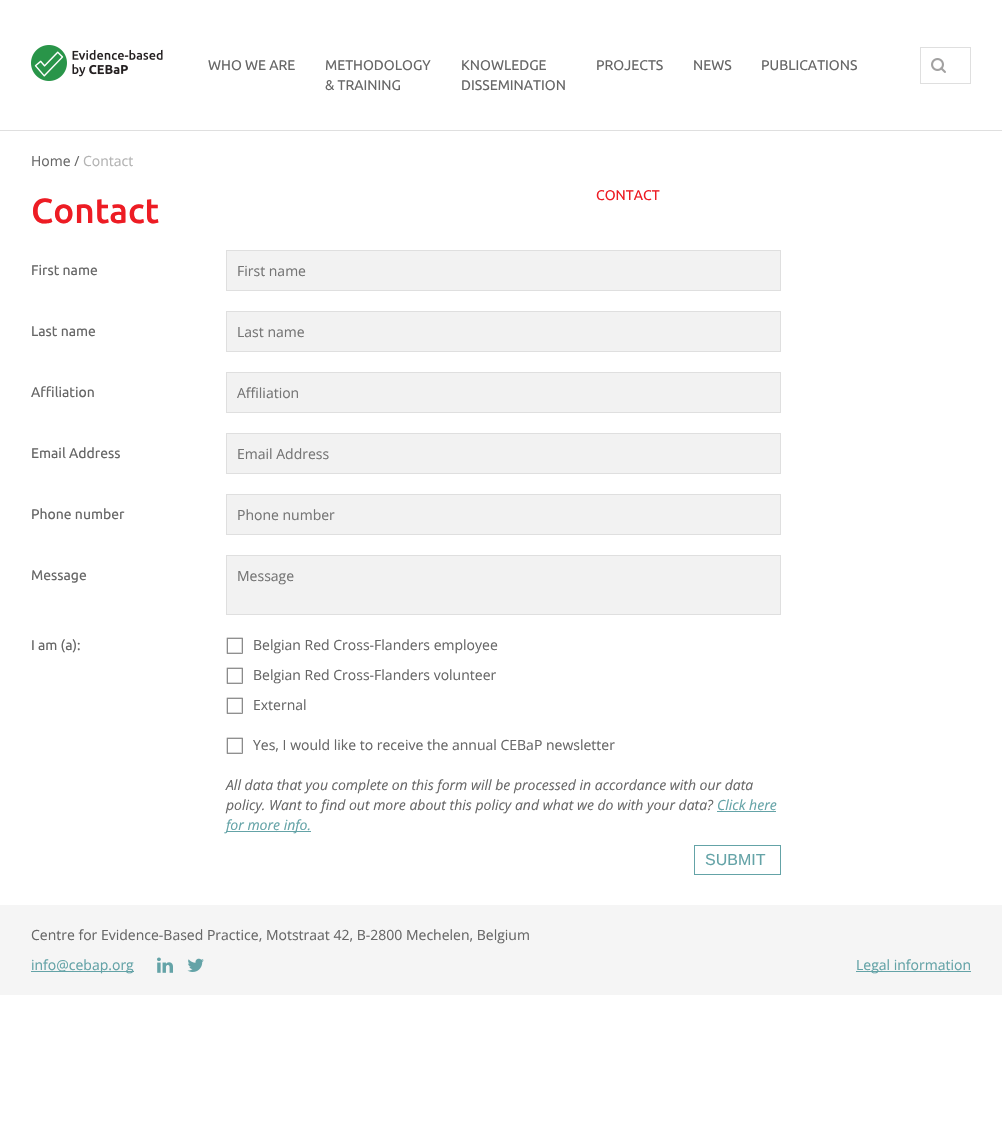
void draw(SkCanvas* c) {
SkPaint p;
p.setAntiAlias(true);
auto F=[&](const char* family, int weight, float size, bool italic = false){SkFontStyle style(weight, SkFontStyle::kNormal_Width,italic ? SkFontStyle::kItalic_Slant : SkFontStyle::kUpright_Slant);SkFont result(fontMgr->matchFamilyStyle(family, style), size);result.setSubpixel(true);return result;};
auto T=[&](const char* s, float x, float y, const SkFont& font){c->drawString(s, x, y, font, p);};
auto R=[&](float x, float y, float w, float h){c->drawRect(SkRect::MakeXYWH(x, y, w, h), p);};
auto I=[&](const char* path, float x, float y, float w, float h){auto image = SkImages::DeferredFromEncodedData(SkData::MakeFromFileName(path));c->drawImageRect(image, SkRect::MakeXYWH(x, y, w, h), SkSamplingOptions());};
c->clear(0xffffffff);
p.setColor(0xffdfdfdf);
R(0,130,1002,1);
I("1.png",31,45,132,36);
auto f1 = F("Ubuntu",400,14);
p.setColor(0xff676767);
T("WHO WE ARE",208,70,f1);
T("METHODOLOGY",325,70,f1);
T("& TRAINING",325,90,f1);
T("KNOWLEDGE",461,70,f1);
T("DISSEMINATION",461,90,f1);
T("PROJECTS",596,70,f1);
T("NEWS",693,70,f1);
T("PUBLICATIONS",761,70,f1);
p.setColor(0xffed1c24);
T("CONTACT",596,200,f1);
p.setStroke(true);
p.setStrokeWidth(1);
p.setColor(0xffdfdfdf);
c->drawRect(SkRect::MakeXYWH(920.5,47.5,50,36),p);
I("2.png",931,58,15,15);
auto f2 = F("Open Sans",400,14);
p.setStroke(false);
p.setColor(0xff676767);
T("Home /",31,166,f2);
p.setColor(0xffb3b3b3);
T("Contact",83,166,f2);
auto f3 = F("Ubuntu",500,35);
p.setColor(0xffed1c24);
T("Contact",31,223,f3);
p.setColor(0xff676767);
T("First name",31,275,f1);
p.setColor(0xfff2f2f2);
c->drawRect(SkRect::MakeXYWH(226.5,250.5,554,40),p);
p.setStroke(true);
p.setColor(0xffdfdfdf);
c->drawRect(SkRect::MakeXYWH(226.5,250.5,554,40),p);
p.setStroke(false);
p.setColor(0xff757575);
T("First name",237,276,f2);
p.setColor(0xff676767);
T("Last name",31,336,f1);
p.setColor(0xfff2f2f2);
c->drawRect(SkRect::MakeXYWH(226.5,311.5,554,40),p);
p.setStroke(true);
p.setColor(0xffdfdfdf);
c->drawRect(SkRect::MakeXYWH(226.5,311.5,554,40),p);
p.setStroke(false);
p.setColor(0xff757575);
T("Last name",237,337,f2);
p.setColor(0xff676767);
T("Affiliation",31,397,f1);
p.setColor(0xfff2f2f2);
c->drawRect(SkRect::MakeXYWH(226.5,372.5,554,40),p);
p.setStroke(true);
p.setColor(0xffdfdfdf);
c->drawRect(SkRect::MakeXYWH(226.5,372.5,554,40),p);
p.setStroke(false);
p.setColor(0xff757575);
T("Affiliation",237,398,f2);
p.setColor(0xff676767);
T("Email Address",31,458,f1);
p.setColor(0xfff2f2f2);
c->drawRect(SkRect::MakeXYWH(226.5,433.5,554,40),p);
p.setStroke(true);
p.setColor(0xffdfdfdf);
c->drawRect(SkRect::MakeXYWH(226.5,433.5,554,40),p);
p.setStroke(false);
p.setColor(0xff757575);
T("Email Address",237,459,f2);
p.setColor(0xff676767);
T("Phone number",31,519,f1);
p.setColor(0xfff2f2f2);
c->drawRect(SkRect::MakeXYWH(226.5,494.5,554,40),p);
p.setStroke(true);
p.setColor(0xffdfdfdf);
c->drawRect(SkRect::MakeXYWH(226.5,494.5,554,40),p);
p.setStroke(false);
p.setColor(0xff757575);
T("Phone number",237,520,f2);
p.setColor(0xff676767);
T("Message",31,580,f1);
p.setColor(0xfff2f2f2);
c->drawRect(SkRect::MakeXYWH(226.5,555.5,554,59),p);
p.setStroke(true);
p.setColor(0xffdfdfdf);
c->drawRect(SkRect::MakeXYWH(226.5,555.5,554,59),p);
p.setStroke(false);
p.setColor(0xff757575);
T("Message",237,581,f2);
p.setColor(0xff676767);
T("I am (a):",31,650,f1);
I("3.png",226,637,17,17);
T("Belgian Red Cross-Flanders employee",253,650,f2);
I("3.png",226,667,17,17);
T("Belgian Red Cross-Flanders volunteer",253,680,f2);
I("3.png",226,697,17,17);
T("External",253,710,f2);
I("3.png",226,737,17,17);
T("Yes, I would like to receive the annual CEBaP newsletter",253,750,f2);
auto f4 = F("Open Sans",400,14,true);
T("All data that you complete on this form will be processed in accordance with our data",226,790,f4);
T("policy. Want to find out more about this policy and what we do with your data?",226,810,f4);
p.setColor(0xff64a3a7);
T("Click here",717,810,f4);
R(717,811,59,1);
R(226,831,85,1);
T("for more info.",226,830,f4);
p.setStroke(true);
c->drawRect(SkRect::MakeXYWH(694.5,845.5,86,29),p);
auto f5 = F("Liberation Sans",400,16);
p.setStroke(false);
T("SUBMIT",705,865,f5);
p.setColor(0xfff5f5f5);
R(0,905,1002,90);
p.setColor(0xff676767);
T("Centre for Evidence-Based Practice, Motstraat 42, B-2800 Mechelen, Belgium",31,940,f2);
p.setColor(0xff64a3a7);
R(31,971,103,1);
T("info@cebap.org",31,970,f2);
I("4.png",157,957,16,16);
I("5.png",187,958,17,14);
R(856,971,115,1);
T("Legal information",856,970,f2);
}
